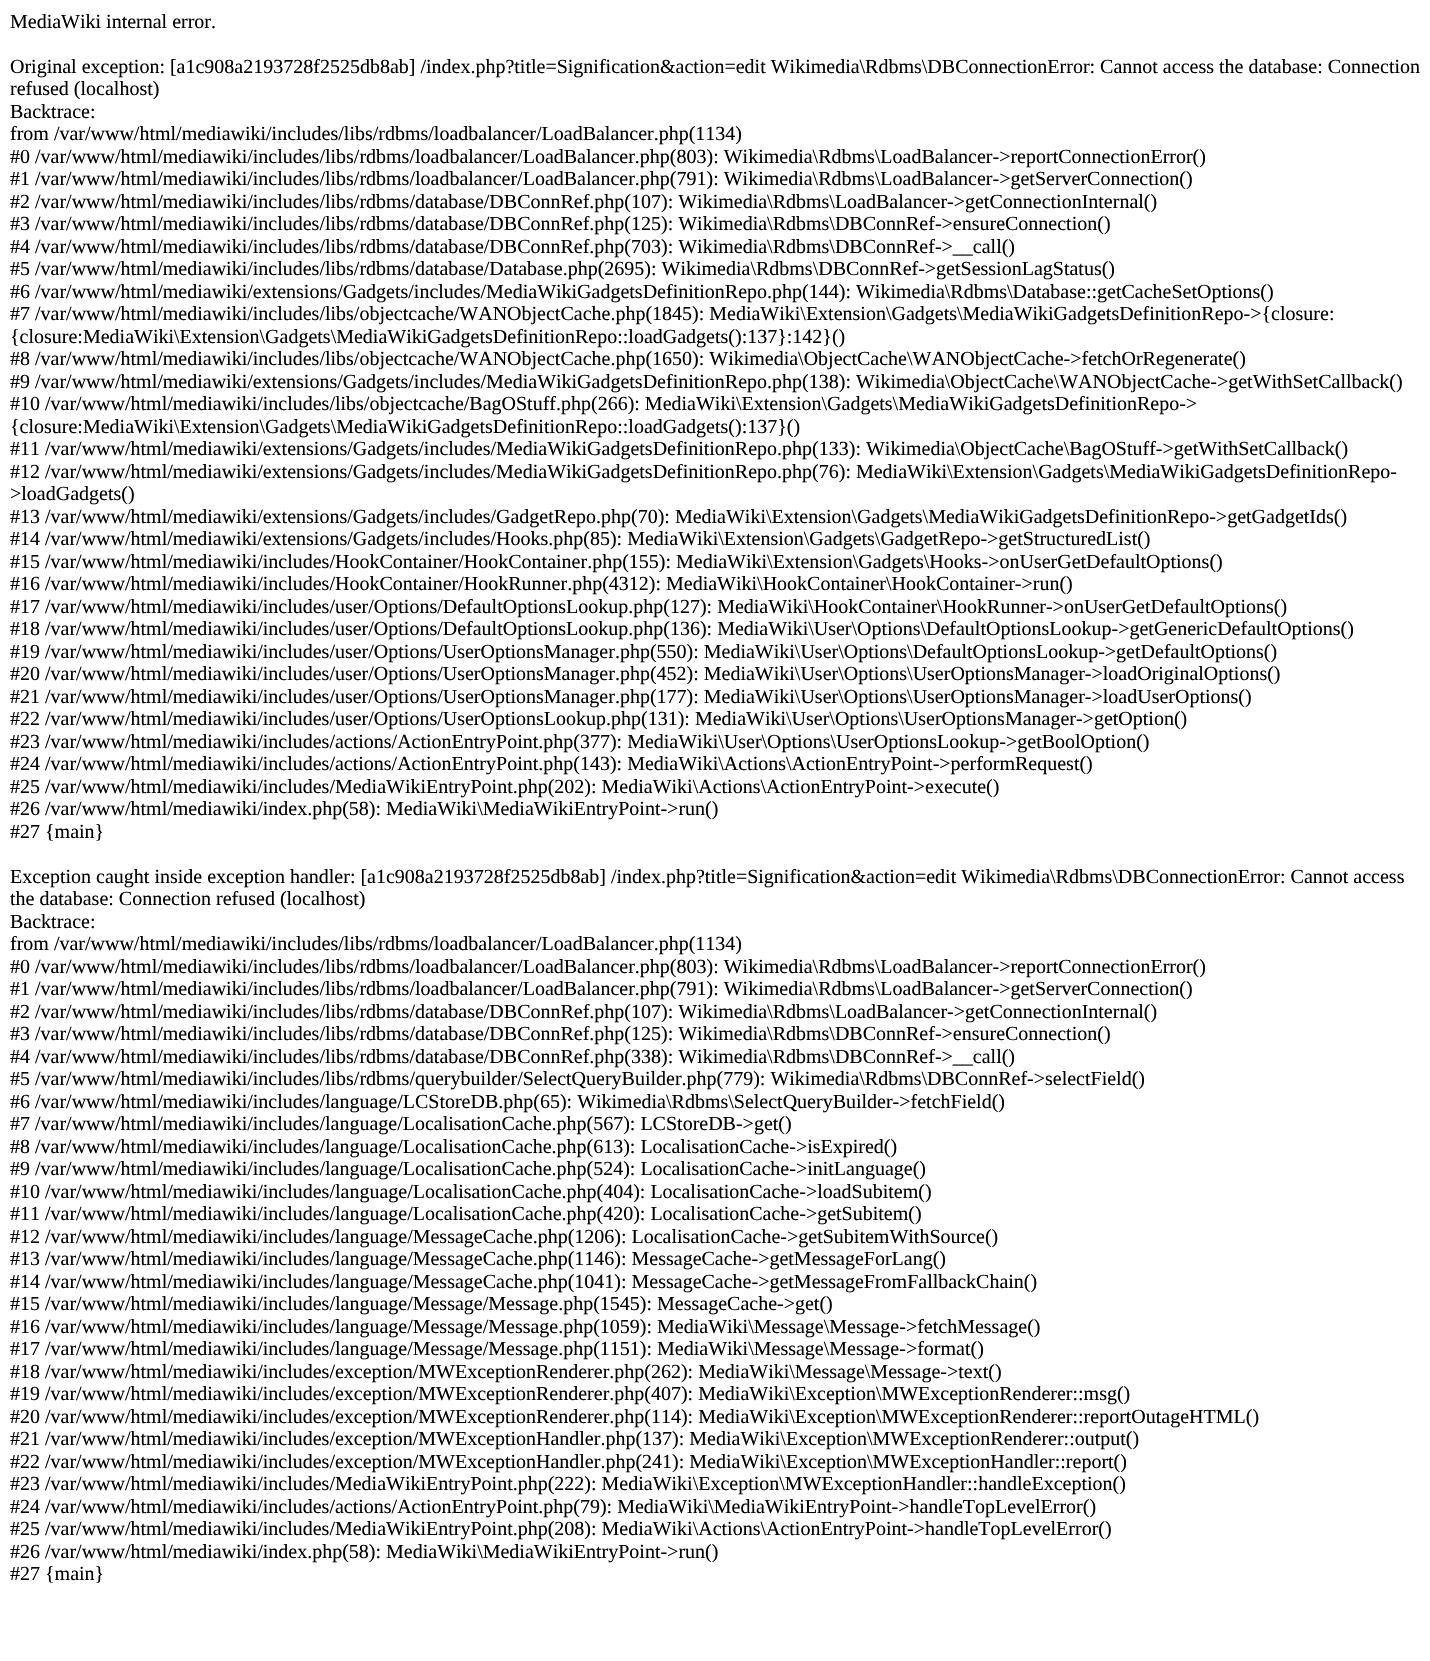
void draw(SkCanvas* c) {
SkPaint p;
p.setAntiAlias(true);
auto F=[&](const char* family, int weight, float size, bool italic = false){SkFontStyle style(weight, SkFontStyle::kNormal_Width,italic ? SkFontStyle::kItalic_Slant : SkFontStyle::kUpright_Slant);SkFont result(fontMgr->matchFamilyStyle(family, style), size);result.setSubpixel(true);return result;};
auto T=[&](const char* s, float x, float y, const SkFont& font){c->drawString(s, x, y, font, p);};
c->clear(0xffffffff);
auto f1 = F("Liberation Serif",400,20);
p.setColor(0xff000000);
T("MediaWiki internal error.",10,28,f1);
T("Original exception: [a1c908a2193728f2525db8ab] /index.php?title=Signification&action=edit Wikimedia\\Rdbms\\DBConnectionError: Cannot access the database: Connection",10,73,f1);
T("refused (localhost)",10,95,f1);
T("Backtrace:",10,118,f1);
T("from /var/www/html/mediawiki/includes/libs/rdbms/loadbalancer/LoadBalancer.php(1134)",10,140,f1);
T("#0 /var/www/html/mediawiki/includes/libs/rdbms/loadbalancer/LoadBalancer.php(803): Wikimedia\\Rdbms\\LoadBalancer->reportConnectionError()",10,163,f1);
T("#1 /var/www/html/mediawiki/includes/libs/rdbms/loadbalancer/LoadBalancer.php(791): Wikimedia\\Rdbms\\LoadBalancer->getServerConnection()",10,185,f1);
T("#2 /var/www/html/mediawiki/includes/libs/rdbms/database/DBConnRef.php(107): Wikimedia\\Rdbms\\LoadBalancer->getConnectionInternal()",10,208,f1);
T("#3 /var/www/html/mediawiki/includes/libs/rdbms/database/DBConnRef.php(125): Wikimedia\\Rdbms\\DBConnRef->ensureConnection()",10,230,f1);
T("#4 /var/www/html/mediawiki/includes/libs/rdbms/database/DBConnRef.php(703): Wikimedia\\Rdbms\\DBConnRef->__call()",10,253,f1);
T("#5 /var/www/html/mediawiki/includes/libs/rdbms/database/Database.php(2695): Wikimedia\\Rdbms\\DBConnRef->getSessionLagStatus()",10,275,f1);
T("#6 /var/www/html/mediawiki/extensions/Gadgets/includes/MediaWikiGadgetsDefinitionRepo.php(144): Wikimedia\\Rdbms\\Database::getCacheSetOptions()",10,298,f1);
T("#7 /var/www/html/mediawiki/includes/libs/objectcache/WANObjectCache.php(1845): MediaWiki\\Extension\\Gadgets\\MediaWikiGadgetsDefinitionRepo->{closure:",10,320,f1);
T("{closure:MediaWiki\\Extension\\Gadgets\\MediaWikiGadgetsDefinitionRepo::loadGadgets():137}:142}()",10,343,f1);
T("#8 /var/www/html/mediawiki/includes/libs/objectcache/WANObjectCache.php(1650): Wikimedia\\ObjectCache\\WANObjectCache->fetchOrRegenerate()",10,365,f1);
T("#9 /var/www/html/mediawiki/extensions/Gadgets/includes/MediaWikiGadgetsDefinitionRepo.php(138): Wikimedia\\ObjectCache\\WANObjectCache->getWithSetCallback()",10,388,f1);
T("#10 /var/www/html/mediawiki/includes/libs/objectcache/BagOStuff.php(266): MediaWiki\\Extension\\Gadgets\\MediaWikiGadgetsDefinitionRepo->",10,410,f1);
T("{closure:MediaWiki\\Extension\\Gadgets\\MediaWikiGadgetsDefinitionRepo::loadGadgets():137}()",10,433,f1);
T("#11 /var/www/html/mediawiki/extensions/Gadgets/includes/MediaWikiGadgetsDefinitionRepo.php(133): Wikimedia\\ObjectCache\\BagOStuff->getWithSetCallback()",10,455,f1);
T("#12 /var/www/html/mediawiki/extensions/Gadgets/includes/MediaWikiGadgetsDefinitionRepo.php(76): MediaWiki\\Extension\\Gadgets\\MediaWikiGadgetsDefinitionRepo-",10,478,f1);
T(">loadGadgets()",10,500,f1);
T("#13 /var/www/html/mediawiki/extensions/Gadgets/includes/GadgetRepo.php(70): MediaWiki\\Extension\\Gadgets\\MediaWikiGadgetsDefinitionRepo->getGadgetIds()",10,523,f1);
T("#14 /var/www/html/mediawiki/extensions/Gadgets/includes/Hooks.php(85): MediaWiki\\Extension\\Gadgets\\GadgetRepo->getStructuredList()",10,545,f1);
T("#15 /var/www/html/mediawiki/includes/HookContainer/HookContainer.php(155): MediaWiki\\Extension\\Gadgets\\Hooks->onUserGetDefaultOptions()",10,568,f1);
T("#16 /var/www/html/mediawiki/includes/HookContainer/HookRunner.php(4312): MediaWiki\\HookContainer\\HookContainer->run()",10,590,f1);
T("#17 /var/www/html/mediawiki/includes/user/Options/DefaultOptionsLookup.php(127): MediaWiki\\HookContainer\\HookRunner->onUserGetDefaultOptions()",10,613,f1);
T("#18 /var/www/html/mediawiki/includes/user/Options/DefaultOptionsLookup.php(136): MediaWiki\\User\\Options\\DefaultOptionsLookup->getGenericDefaultOptions()",10,635,f1);
T("#19 /var/www/html/mediawiki/includes/user/Options/UserOptionsManager.php(550): MediaWiki\\User\\Options\\DefaultOptionsLookup->getDefaultOptions()",10,658,f1);
T("#20 /var/www/html/mediawiki/includes/user/Options/UserOptionsManager.php(452): MediaWiki\\User\\Options\\UserOptionsManager->loadOriginalOptions()",10,680,f1);
T("#21 /var/www/html/mediawiki/includes/user/Options/UserOptionsManager.php(177): MediaWiki\\User\\Options\\UserOptionsManager->loadUserOptions()",10,703,f1);
T("#22 /var/www/html/mediawiki/includes/user/Options/UserOptionsLookup.php(131): MediaWiki\\User\\Options\\UserOptionsManager->getOption()",10,725,f1);
T("#23 /var/www/html/mediawiki/includes/actions/ActionEntryPoint.php(377): MediaWiki\\User\\Options\\UserOptionsLookup->getBoolOption()",10,748,f1);
T("#24 /var/www/html/mediawiki/includes/actions/ActionEntryPoint.php(143): MediaWiki\\Actions\\ActionEntryPoint->performRequest()",10,770,f1);
T("#25 /var/www/html/mediawiki/includes/MediaWikiEntryPoint.php(202): MediaWiki\\Actions\\ActionEntryPoint->execute()",10,793,f1);
T("#26 /var/www/html/mediawiki/index.php(58): MediaWiki\\MediaWikiEntryPoint->run()",10,815,f1);
T("#27 {main}",10,838,f1);
T("Exception caught inside exception handler: [a1c908a2193728f2525db8ab] /index.php?title=Signification&action=edit Wikimedia\\Rdbms\\DBConnectionError: Cannot access",10,883,f1);
T("the database: Connection refused (localhost)",10,905,f1);
T("Backtrace:",10,928,f1);
T("from /var/www/html/mediawiki/includes/libs/rdbms/loadbalancer/LoadBalancer.php(1134)",10,950,f1);
T("#0 /var/www/html/mediawiki/includes/libs/rdbms/loadbalancer/LoadBalancer.php(803): Wikimedia\\Rdbms\\LoadBalancer->reportConnectionError()",10,973,f1);
T("#1 /var/www/html/mediawiki/includes/libs/rdbms/loadbalancer/LoadBalancer.php(791): Wikimedia\\Rdbms\\LoadBalancer->getServerConnection()",10,995,f1);
T("#2 /var/www/html/mediawiki/includes/libs/rdbms/database/DBConnRef.php(107): Wikimedia\\Rdbms\\LoadBalancer->getConnectionInternal()",10,1018,f1);
T("#3 /var/www/html/mediawiki/includes/libs/rdbms/database/DBConnRef.php(125): Wikimedia\\Rdbms\\DBConnRef->ensureConnection()",10,1040,f1);
T("#4 /var/www/html/mediawiki/includes/libs/rdbms/database/DBConnRef.php(338): Wikimedia\\Rdbms\\DBConnRef->__call()",10,1063,f1);
T("#5 /var/www/html/mediawiki/includes/libs/rdbms/querybuilder/SelectQueryBuilder.php(779): Wikimedia\\Rdbms\\DBConnRef->selectField()",10,1085,f1);
T("#6 /var/www/html/mediawiki/includes/language/LCStoreDB.php(65): Wikimedia\\Rdbms\\SelectQueryBuilder->fetchField()",10,1108,f1);
T("#7 /var/www/html/mediawiki/includes/language/LocalisationCache.php(567): LCStoreDB->get()",10,1130,f1);
T("#8 /var/www/html/mediawiki/includes/language/LocalisationCache.php(613): LocalisationCache->isExpired()",10,1153,f1);
T("#9 /var/www/html/mediawiki/includes/language/LocalisationCache.php(524): LocalisationCache->initLanguage()",10,1175,f1);
T("#10 /var/www/html/mediawiki/includes/language/LocalisationCache.php(404): LocalisationCache->loadSubitem()",10,1198,f1);
T("#11 /var/www/html/mediawiki/includes/language/LocalisationCache.php(420): LocalisationCache->getSubitem()",10,1220,f1);
T("#12 /var/www/html/mediawiki/includes/language/MessageCache.php(1206): LocalisationCache->getSubitemWithSource()",10,1243,f1);
T("#13 /var/www/html/mediawiki/includes/language/MessageCache.php(1146): MessageCache->getMessageForLang()",10,1265,f1);
T("#14 /var/www/html/mediawiki/includes/language/MessageCache.php(1041): MessageCache->getMessageFromFallbackChain()",10,1288,f1);
T("#15 /var/www/html/mediawiki/includes/language/Message/Message.php(1545): MessageCache->get()",10,1310,f1);
T("#16 /var/www/html/mediawiki/includes/language/Message/Message.php(1059): MediaWiki\\Message\\Message->fetchMessage()",10,1333,f1);
T("#17 /var/www/html/mediawiki/includes/language/Message/Message.php(1151): MediaWiki\\Message\\Message->format()",10,1355,f1);
T("#18 /var/www/html/mediawiki/includes/exception/MWExceptionRenderer.php(262): MediaWiki\\Message\\Message->text()",10,1378,f1);
T("#19 /var/www/html/mediawiki/includes/exception/MWExceptionRenderer.php(407): MediaWiki\\Exception\\MWExceptionRenderer::msg()",10,1400,f1);
T("#20 /var/www/html/mediawiki/includes/exception/MWExceptionRenderer.php(114): MediaWiki\\Exception\\MWExceptionRenderer::reportOutageHTML()",10,1423,f1);
T("#21 /var/www/html/mediawiki/includes/exception/MWExceptionHandler.php(137): MediaWiki\\Exception\\MWExceptionRenderer::output()",10,1445,f1);
T("#22 /var/www/html/mediawiki/includes/exception/MWExceptionHandler.php(241): MediaWiki\\Exception\\MWExceptionHandler::report()",10,1468,f1);
T("#23 /var/www/html/mediawiki/includes/MediaWikiEntryPoint.php(222): MediaWiki\\Exception\\MWExceptionHandler::handleException()",10,1490,f1);
T("#24 /var/www/html/mediawiki/includes/actions/ActionEntryPoint.php(79): MediaWiki\\MediaWikiEntryPoint->handleTopLevelError()",10,1513,f1);
T("#25 /var/www/html/mediawiki/includes/MediaWikiEntryPoint.php(208): MediaWiki\\Actions\\ActionEntryPoint->handleTopLevelError()",10,1535,f1);
T("#26 /var/www/html/mediawiki/index.php(58): MediaWiki\\MediaWikiEntryPoint->run()",10,1558,f1);
T("#27 {main}",10,1580,f1);
}
